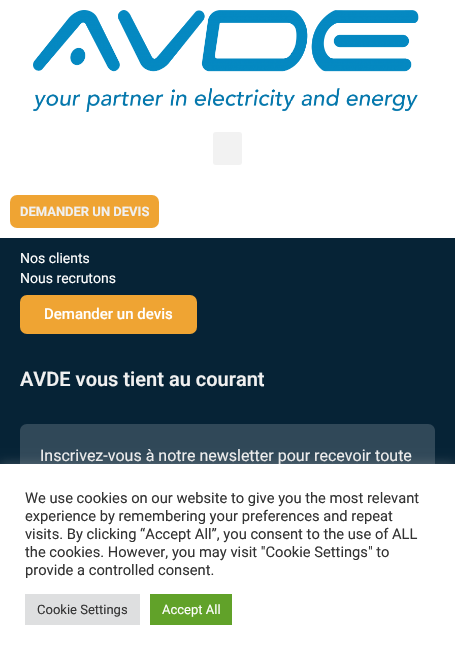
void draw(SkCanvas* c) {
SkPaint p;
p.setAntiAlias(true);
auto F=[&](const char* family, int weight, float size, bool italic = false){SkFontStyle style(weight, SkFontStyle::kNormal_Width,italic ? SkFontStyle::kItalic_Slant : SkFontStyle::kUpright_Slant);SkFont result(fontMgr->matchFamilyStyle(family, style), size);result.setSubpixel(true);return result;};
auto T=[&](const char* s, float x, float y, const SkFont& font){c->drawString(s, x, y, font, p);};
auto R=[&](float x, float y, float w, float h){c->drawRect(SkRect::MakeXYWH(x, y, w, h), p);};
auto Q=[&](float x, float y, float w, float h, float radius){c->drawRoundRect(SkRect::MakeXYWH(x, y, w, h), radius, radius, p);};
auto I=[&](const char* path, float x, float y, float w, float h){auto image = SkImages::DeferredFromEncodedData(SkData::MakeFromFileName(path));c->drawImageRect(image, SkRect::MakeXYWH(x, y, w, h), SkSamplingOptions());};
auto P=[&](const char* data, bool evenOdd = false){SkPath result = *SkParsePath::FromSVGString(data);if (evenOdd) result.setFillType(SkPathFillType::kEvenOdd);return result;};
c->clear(0xff062336);
p.setColor(0xffffffff);
R(0,0,455,238);
I("1.png",33,10,386,102);
p.setColor(0xfff2f2f2);
Q(213,132,29,33,3);
p.setColor(0xffefa433);
Q(10,195,149,33,7);
auto f1 = F("Roboto",700,13);
p.setColor(0xfff0f0f0);
T("DEMANDER UN DEVIS",20,216,f1);
auto f2 = F("Roboto",400,14);
p.setColor(0xffffffff);
T("Nos clients",20,263,f2);
T("Nous recrutons",20,283,f2);
p.setColor(0xffefa433);
Q(20,295,177,39,7);
auto f3 = F("Roboto",500,15);
p.setColor(0xffffffff);
T("Demander un devis",44,319,f3);
auto f4 = F("Roboto",600,20);
p.setColor(0xfff0f0f0);
T("AVDE vous tient au courant",20,386,f4);
p.setColor(0xff304858);
c->drawPath(P("M27 424h401c4 0 7 3 7 7v85h-415v-85c0-4 3-7 7-7z"),p);
auto f5 = F("Roboto",400,16);
p.setColor(0xfff0f0f0);
T("Inscrivez-vous à notre newsletter pour recevoir toute",40,461,f5);
p.setColor(0x4dacabab);
p.setMaskFilter(SkMaskFilter::MakeBlur(kNormal_SkBlurStyle, 5));
c->drawRect(SkRect::MakeXYWH(0,463,455,191),p);
p.setMaskFilter(nullptr);
p.setColor(0xffffffff);
R(0,464,455,191);
auto f6 = F("Roboto",400,14.7);
p.setColor(0xff333333);
T("We use cookies on our website to give you the most relevant",25,503,f6);
T("experience by remembering your preferences and repeat",25,521,f6);
T("visits. By clicking “Accept All”, you consent to the use of ALL",25,539,f6);
T("the cookies. However, you may visit \"Cookie Settings\" to",25,557,f6);
T("provide a controlled consent.",25,575,f6);
p.setColor(0xffdedfe0);
R(25,594,115,31);
auto f7 = F("Roboto",400,13);
p.setColor(0xff333333);
T("Cookie Settings",37,614,f7);
p.setColor(0xff61a229);
R(150,594,82,31);
p.setColor(0xffffffff);
T("Accept All",162,614,f7);
}
